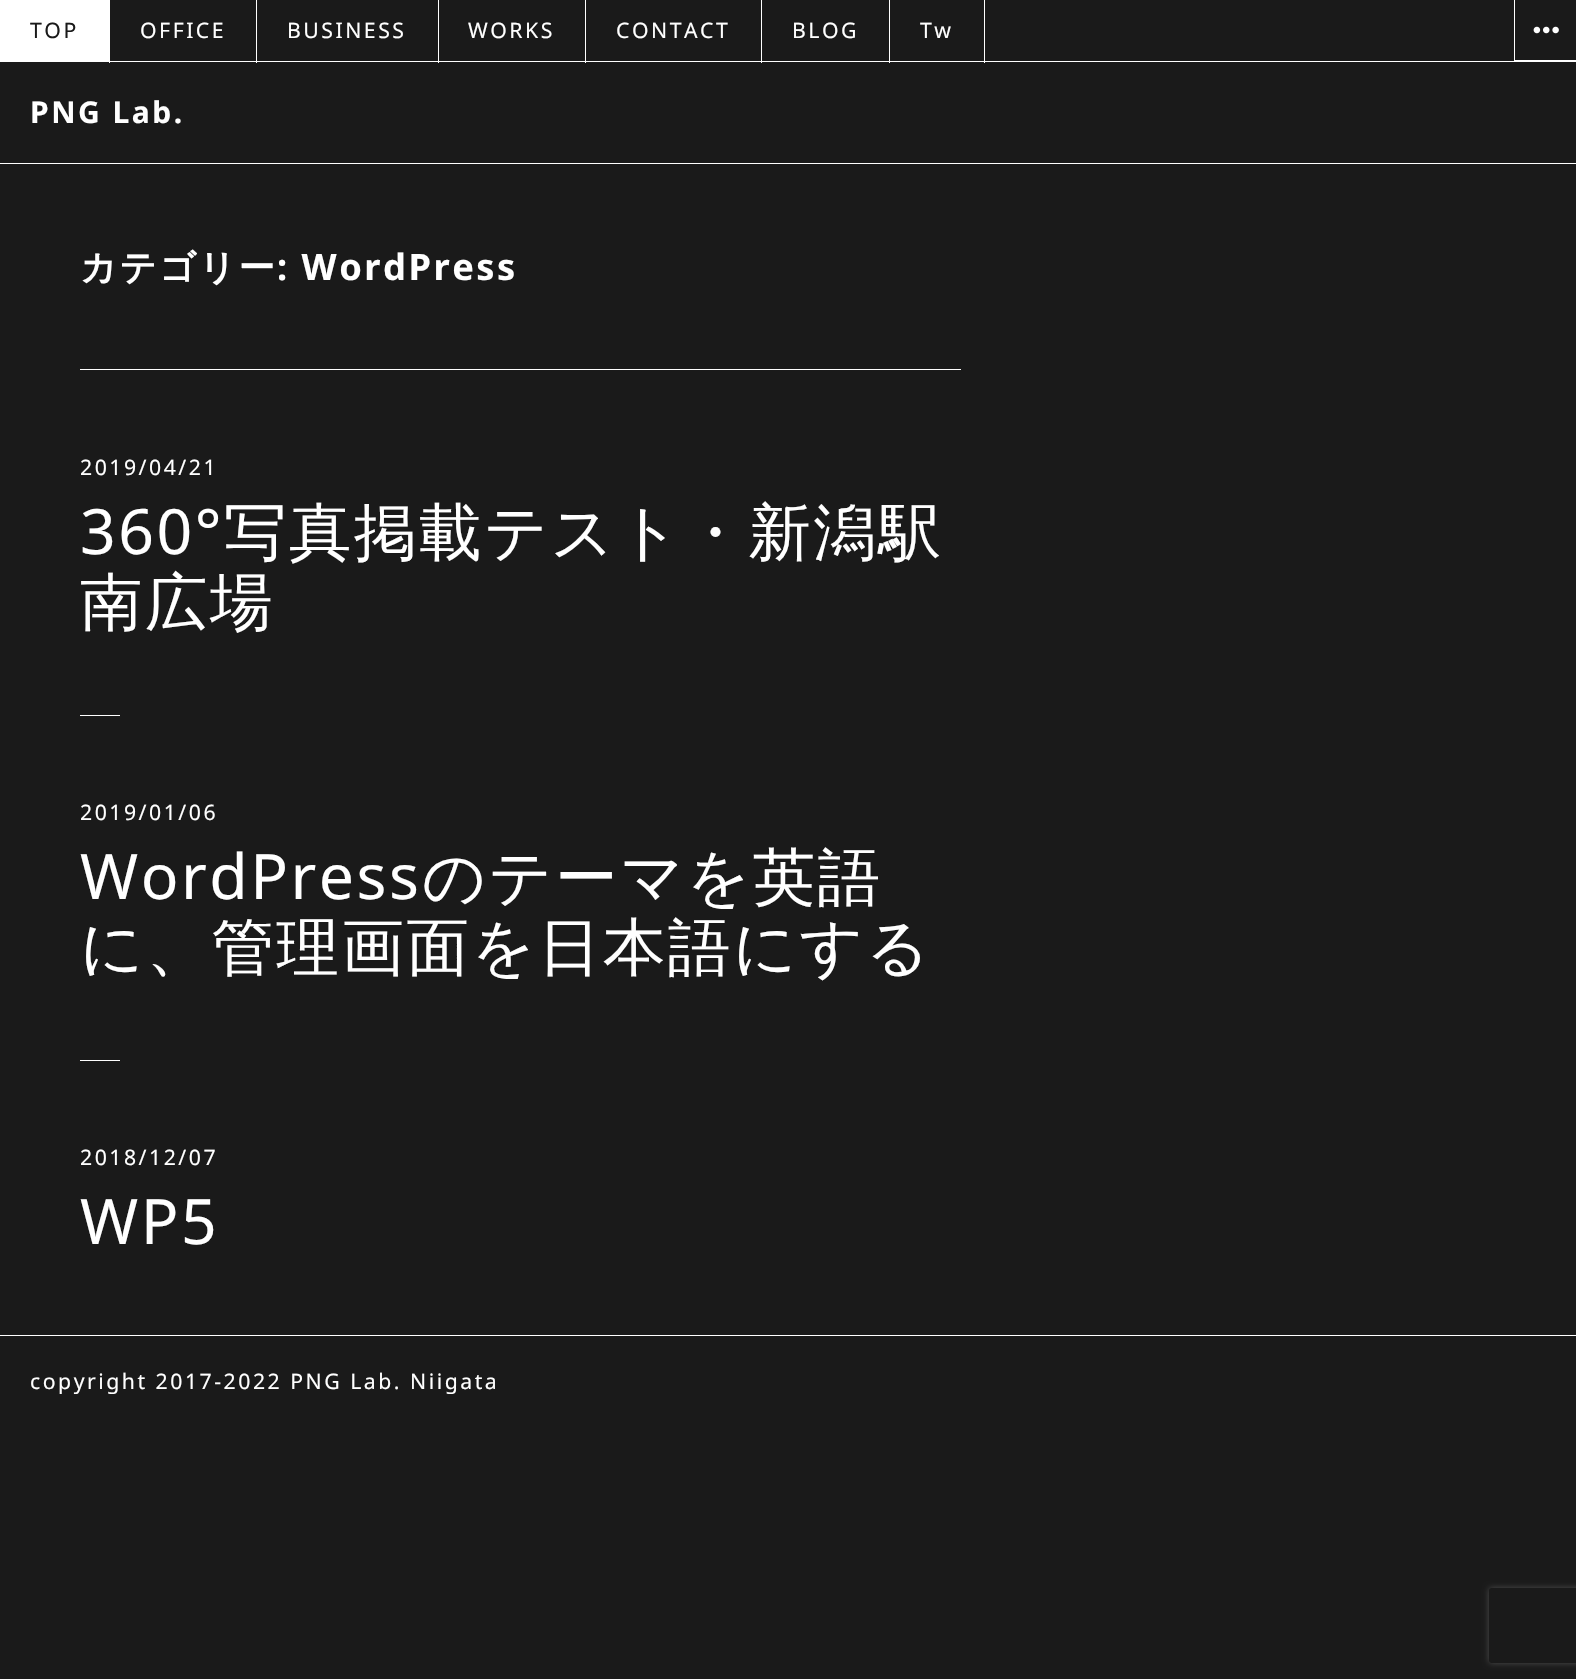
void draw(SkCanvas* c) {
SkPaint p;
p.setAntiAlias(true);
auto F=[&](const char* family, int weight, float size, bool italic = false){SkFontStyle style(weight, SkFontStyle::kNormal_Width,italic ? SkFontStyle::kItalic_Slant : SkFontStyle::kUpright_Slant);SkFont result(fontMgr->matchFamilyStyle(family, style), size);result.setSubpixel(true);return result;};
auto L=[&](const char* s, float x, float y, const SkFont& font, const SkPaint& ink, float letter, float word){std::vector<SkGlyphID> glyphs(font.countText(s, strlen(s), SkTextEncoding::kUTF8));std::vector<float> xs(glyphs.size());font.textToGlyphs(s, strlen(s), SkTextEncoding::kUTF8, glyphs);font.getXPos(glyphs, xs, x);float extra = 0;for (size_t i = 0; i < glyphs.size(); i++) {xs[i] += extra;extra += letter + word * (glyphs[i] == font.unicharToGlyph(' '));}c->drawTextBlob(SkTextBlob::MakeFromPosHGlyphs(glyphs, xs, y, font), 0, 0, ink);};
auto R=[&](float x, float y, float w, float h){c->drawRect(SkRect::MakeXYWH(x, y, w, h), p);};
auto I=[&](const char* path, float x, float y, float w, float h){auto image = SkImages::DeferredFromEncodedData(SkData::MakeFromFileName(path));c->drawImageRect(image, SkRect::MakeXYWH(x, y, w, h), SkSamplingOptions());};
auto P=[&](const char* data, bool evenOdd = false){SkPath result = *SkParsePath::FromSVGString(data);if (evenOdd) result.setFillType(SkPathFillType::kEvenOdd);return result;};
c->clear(0xff1a1a1a);
p.setColor(0xffffffff);
R(0,163,1576,1);
R(0,0,109,61);
R(0,61,1576,1);
R(109,0,1,63);
auto f1 = F("Noto Sans",400,21.25);
p.setColor(0xff1a1a1a);
L("TOP",30,38,f1,p,2.5,0);
p.setColor(0xffffffff);
R(256,0,1,63);
L("OFFICE",140,38,f1,p,2.5,0);
R(438,0,1,63);
L("BUSINESS",287,38,f1,p,2.5,0);
R(585,0,1,63);
L("WORKS",468,38,f1,p,2.5,0);
R(761,0,1,63);
L("CONTACT",616,38,f1,p,2.5,0);
R(889,0,1,63);
L("BLOG",792,38,f1,p,2.5,0);
R(984,0,1,63);
L("Tw",920,38,f1,p,2.5,0);
R(1514,60,62,1);
R(1514,0,1,61);
I("1.png",1533,26,26,8);
auto f2 = F("Noto Sans",700,30);
L("PNG Lab.",30,123,f2,p,2.5,0);
R(80,369,881,1);
auto f3 = F("WenQuanYi Zen Hei",700,36.25);
L("カテゴリー",80,280,f3,p,2.5,0);
auto f4 = F("Noto Sans",700,36.25);
L(": WordPress",277,280,f4,p,2.5,0);
L("2019/04/21",80,475,f1,p,2.5,0);
auto f5 = F("Noto Sans",400,62.5);
L("360°",80,554,f5,p,2.5,0);
auto f6 = F("WenQuanYi Zen Hei",500,62.5);
L("写真掲載テスト・新潟駅",224,554,f6,p,2.5,0);
L("南広場",80,624,f6,p,2.5,0);
R(80,715,40,1);
L("2019/01/06",80,820,f1,p,2.5,0);
L("WordPress",80,899,f5,p,2.5,0);
L("のテーマを英語",422,899,f6,p,2.5,0);
L("に、管理画面を日本語にする",80,969,f6,p,2.5,0);
R(80,1060,40,1);
L("2018/12/07",80,1165,f1,p,2.5,0);
L("WP5",80,1244,f5,p,2.5,0);
R(0,1335,1576,1);
L("copyright 2017-2022 PNG Lab. Niigata",30,1389,f1,p,2.5,0);
c->save();
c->clipPath(P("M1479 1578h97v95h-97zm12.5 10h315c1.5 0 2.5 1 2.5 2.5v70c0 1.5-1 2.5-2.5 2.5h-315c-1.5 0-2.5-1-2.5-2.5v-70c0-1.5 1-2.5 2.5-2.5z",true),true);
p.setColor(0xff4d4d4d);
p.setMaskFilter(SkMaskFilter::MakeBlur(kNormal_SkBlurStyle, 3));
c->drawRoundRect(SkRect::MakeXYWH(1489,1588,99,75),2.5,2.5,p);
p.setMaskFilter(nullptr);
c->restore();
}
